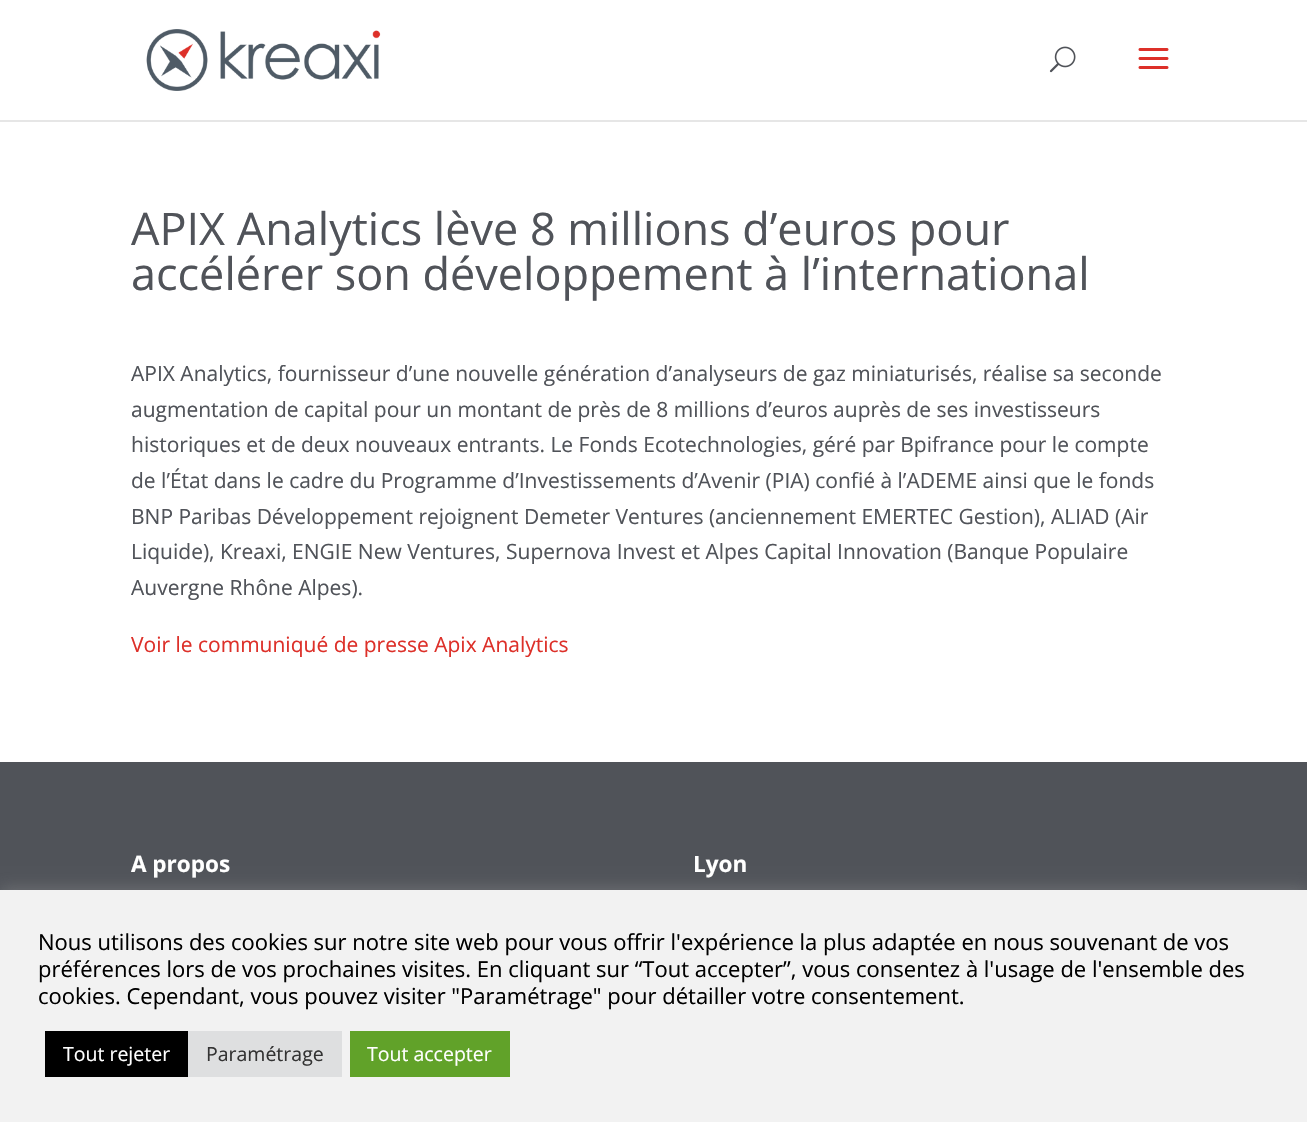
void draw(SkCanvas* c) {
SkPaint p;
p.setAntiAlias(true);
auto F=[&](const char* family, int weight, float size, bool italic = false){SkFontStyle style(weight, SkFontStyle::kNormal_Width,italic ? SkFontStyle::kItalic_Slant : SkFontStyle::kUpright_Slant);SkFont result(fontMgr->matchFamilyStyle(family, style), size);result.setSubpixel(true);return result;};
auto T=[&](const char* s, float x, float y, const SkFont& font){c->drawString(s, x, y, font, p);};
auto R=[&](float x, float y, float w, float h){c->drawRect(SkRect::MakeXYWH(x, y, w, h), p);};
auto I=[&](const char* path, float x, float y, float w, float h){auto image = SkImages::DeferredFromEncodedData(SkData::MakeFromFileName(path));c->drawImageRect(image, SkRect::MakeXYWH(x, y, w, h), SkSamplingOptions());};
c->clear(0xffffffff);
p.setColor(0xffe6e6e6);
R(0,120,1307,2);
I("1.png",146,29,235,62);
I("2.png",1049,46,27,27);
I("3.png",1138,48,31,21);
auto f1 = F("Open Sans",400,45);
p.setColor(0xff505359);
T("APIX Analytics lève 8 millions d’euros pour",131,245,f1);
T("accélérer son développement à l’international",131,290,f1);
auto f2 = F("Open Sans",400,21);
T("APIX Analytics, fournisseur d’une nouvelle génération d’analyseurs de gaz miniaturisés, réalise sa seconde",131,381,f2);
T("augmentation de capital pour un montant de près de 8 millions d’euros auprès de ses investisseurs",131,417,f2);
T("historiques et de deux nouveaux entrants. Le Fonds Ecotechnologies, géré par Bpifrance pour le compte",131,452,f2);
T("de l’État dans le cadre du Programme d’Investissements d’Avenir (PIA) confié à l’ADEME ainsi que le fonds",131,488,f2);
T("BNP Paribas Développement rejoignent Demeter Ventures (anciennement EMERTEC Gestion), ALIAD (Air",131,524,f2);
T("Liquide), Kreaxi, ENGIE New Ventures, Supernova Invest et Alpes Capital Innovation (Banque Populaire",131,559,f2);
T("Auvergne Rhône Alpes).",131,595,f2);
p.setColor(0xffdd3029);
T("Voir le communiqué de presse Apix Analytics",131,652,f2);
p.setColor(0xff505359);
R(0,762,1307,128);
auto f3 = F("Open Sans",700,22.5);
p.setColor(0xffffffff);
T("A propos",131,872,f3);
T("Lyon",693,872,f3);
p.setColor(0x4dacabab);
p.setMaskFilter(SkMaskFilter::MakeBlur(kNormal_SkBlurStyle, 7.5));
c->drawRect(SkRect::MakeXYWH(0,888,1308,233),p);
p.setMaskFilter(nullptr);
p.setColor(0xfff2f2f2);
R(0,890,1307,232);
auto f4 = F("Open Sans",400,22);
p.setColor(0xff000000);
T("Nous utilisons des cookies sur notre site web pour vous offrir l'expérience la plus adaptée en nous souvenant de vos",38,950,f4);
T("préférences lors de vos prochaines visites. En cliquant sur “Tout accepter”, vous consentez à l'usage de l'ensemble des",38,977,f4);
T("cookies. Cependant, vous pouvez visiter \"Paramétrage\" pour détailler votre consentement.",38,1004,f4);
R(45,1031,143,46);
auto f5 = F("Open Sans",400,19.5);
p.setColor(0xffffffff);
T("Tout rejeter",63,1061,f5);
p.setColor(0xffdedfe0);
R(188,1031,154,46);
p.setColor(0xff333333);
T("Paramétrage",206,1061,f5);
p.setColor(0xff61a229);
R(350,1031,160,46);
p.setColor(0xffffffff);
T("Tout accepter",367,1061,f5);
}
